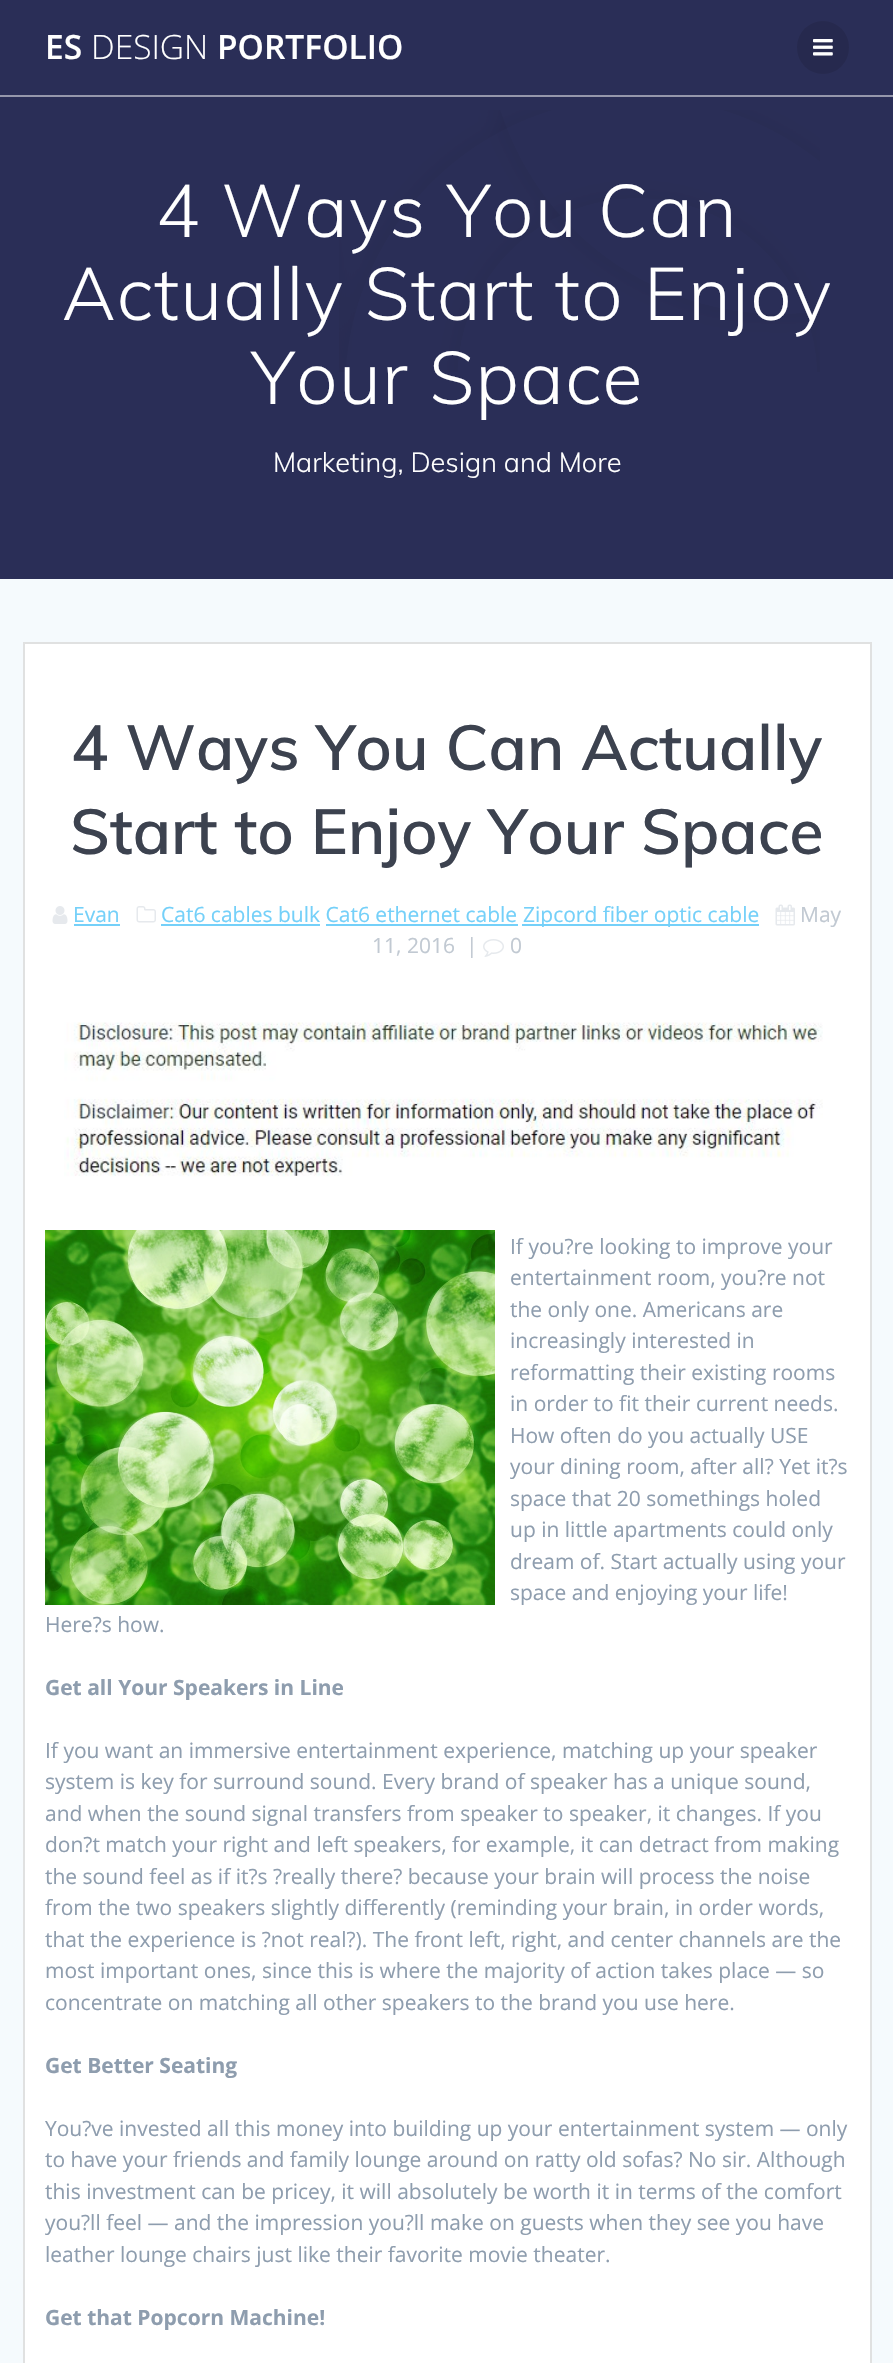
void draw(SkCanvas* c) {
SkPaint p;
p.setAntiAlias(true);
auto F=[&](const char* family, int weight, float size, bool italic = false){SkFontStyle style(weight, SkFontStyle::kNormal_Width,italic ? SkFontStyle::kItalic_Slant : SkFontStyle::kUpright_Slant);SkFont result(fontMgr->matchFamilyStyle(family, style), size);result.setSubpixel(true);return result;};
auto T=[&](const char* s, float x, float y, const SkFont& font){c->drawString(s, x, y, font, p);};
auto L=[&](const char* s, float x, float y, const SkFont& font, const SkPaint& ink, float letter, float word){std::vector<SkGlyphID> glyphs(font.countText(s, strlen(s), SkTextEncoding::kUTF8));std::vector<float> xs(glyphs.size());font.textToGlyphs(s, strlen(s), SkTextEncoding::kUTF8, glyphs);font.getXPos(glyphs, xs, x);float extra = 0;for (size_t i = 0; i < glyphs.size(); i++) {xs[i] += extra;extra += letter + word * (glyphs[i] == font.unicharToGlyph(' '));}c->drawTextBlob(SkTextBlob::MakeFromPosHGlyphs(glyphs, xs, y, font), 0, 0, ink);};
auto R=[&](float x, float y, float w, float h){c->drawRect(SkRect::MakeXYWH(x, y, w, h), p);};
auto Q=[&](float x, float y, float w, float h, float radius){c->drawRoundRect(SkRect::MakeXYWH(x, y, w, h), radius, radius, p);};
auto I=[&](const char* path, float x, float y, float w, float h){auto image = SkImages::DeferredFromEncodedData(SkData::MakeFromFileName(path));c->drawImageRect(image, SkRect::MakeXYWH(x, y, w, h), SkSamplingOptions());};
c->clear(0xff2a2e57);
p.setColor(0xff9597ab);
R(0,95,893,2);
auto f1 = F("Open Sans",600,33.5);
p.setColor(0xffffffff);
T("ES",45,59,f1);
auto f2 = F("Open Sans",300,33.5);
T("DESIGN",91,59,f2);
T("PORTFOLIO",217,59,f1);
p.setColor(0xff26294e);
Q(797,21,52,53,26);
I("1.png",813,39,20,17);
I("2.png",339,110,481,262);
auto f3 = F("Muli",300,73.5);
p.setColor(0xffffffff);
L("4 Ways You Can",156,237,f3,p,1.35,0);
L("Actually Start to Enjoy",62,320,f3,p,1.35,0);
L("Your Space",251,404,f3,p,1.35,0);
auto f4 = F("Muli",300,27.25);
T("Marketing, Design and More",273,472,f4);
p.setColor(0xfff5fafd);
R(0,579,893,1784);
p.setColor(0xffffffff);
c->drawRect(SkRect::MakeXYWH(24,643,847,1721),p);
p.setStroke(true);
p.setStrokeWidth(2);
p.setColor(0xffe0e1e1);
c->drawRect(SkRect::MakeXYWH(24,643,847,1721),p);
auto f5 = F("Muli",600,63);
p.setStroke(false);
p.setColor(0xff3c424f);
T("4 Ways You Can Actually",71,770,f5);
T("Start to Enjoy Your Space",70,854,f5);
I("3.png",52,906,16,18);
auto f6 = F("Open Sans",400,21);
p.setColor(0xff74d0f9);
T("Evan",73,922,f6);
R(74,924,46,2);
I("4.png",136,906,20,17);
T("Cat6 cables bulk Cat6 ethernet cable",161,922,f6);
R(161,924,159,2);
R(522,924,237,2);
T("Zipcord fiber optic cable",523,922,f6);
I("5.png",775,904,20,22);
p.setColor(0xffc1c9d2);
T("May",800,922,f6);
p.setColor(0xff74d0f9);
R(326,924,192,2);
p.setColor(0xffc1c9d2);
T("11, 2016",372,953,f6);
T("|",466,953,f6);
I("6.png",483,939,21,18);
T("0",510,953,f6);
I("7.png",64,1022,759,155);
I("8.png",45,1230,450,375);
p.setColor(0xff8e9dae);
T("If you?re looking to improve your",510,1254,f6);
T("entertainment room, you?re not",510,1285,f6);
T("the only one. Americans are",510,1317,f6);
T("increasingly interested in",510,1348,f6);
T("reformatting their existing rooms",510,1380,f6);
T("in order to fit their current needs.",510,1411,f6);
T("How often do you actually USE",510,1443,f6);
T("your dining room, after all? Yet it?s",510,1474,f6);
T("space that 20 somethings holed",510,1506,f6);
T("up in little apartments could only",510,1537,f6);
T("dream of. Start actually using your",510,1569,f6);
T("space and enjoying your life!",510,1600,f6);
T("Here?s how.",45,1632,f6);
auto f7 = F("Open Sans",700,21);
T("Get all Your Speakers in Line",45,1695,f7);
T("If you want an immersive entertainment experience, matching up your speaker",45,1758,f6);
T("system is key for surround sound. Every brand of speaker has a unique sound,",45,1789,f6);
T("and when the sound signal transfers from speaker to speaker, it changes. If you",45,1821,f6);
T("don?t match your right and left speakers, for example, it can detract from making",45,1852,f6);
T("the sound feel as if it?s ?really there? because your brain will process the noise",45,1884,f6);
T("from the two speakers slightly differently (reminding your brain, in order words,",45,1915,f6);
T("that the experience is ?not real?). The front left, right, and center channels are the",45,1947,f6);
T("most important ones, since this is where the majority of action takes place — so",45,1978,f6);
T("concentrate on matching all other speakers to the brand you use here.",45,2010,f6);
T("Get Better Seating",45,2073,f7);
T("You?ve invested all this money into building up your entertainment system — only",45,2136,f6);
T("to have your friends and family lounge around on ratty old sofas? No sir. Although",45,2167,f6);
T("this investment can be pricey, it will absolutely be worth it in terms of the comfort",45,2199,f6);
T("you?ll feel — and the impression you?ll make on guests when they see you have",45,2230,f6);
T("leather lounge chairs just like their favorite movie theater.",45,2262,f6);
T("Get that Popcorn Machine!",45,2325,f7);
}
